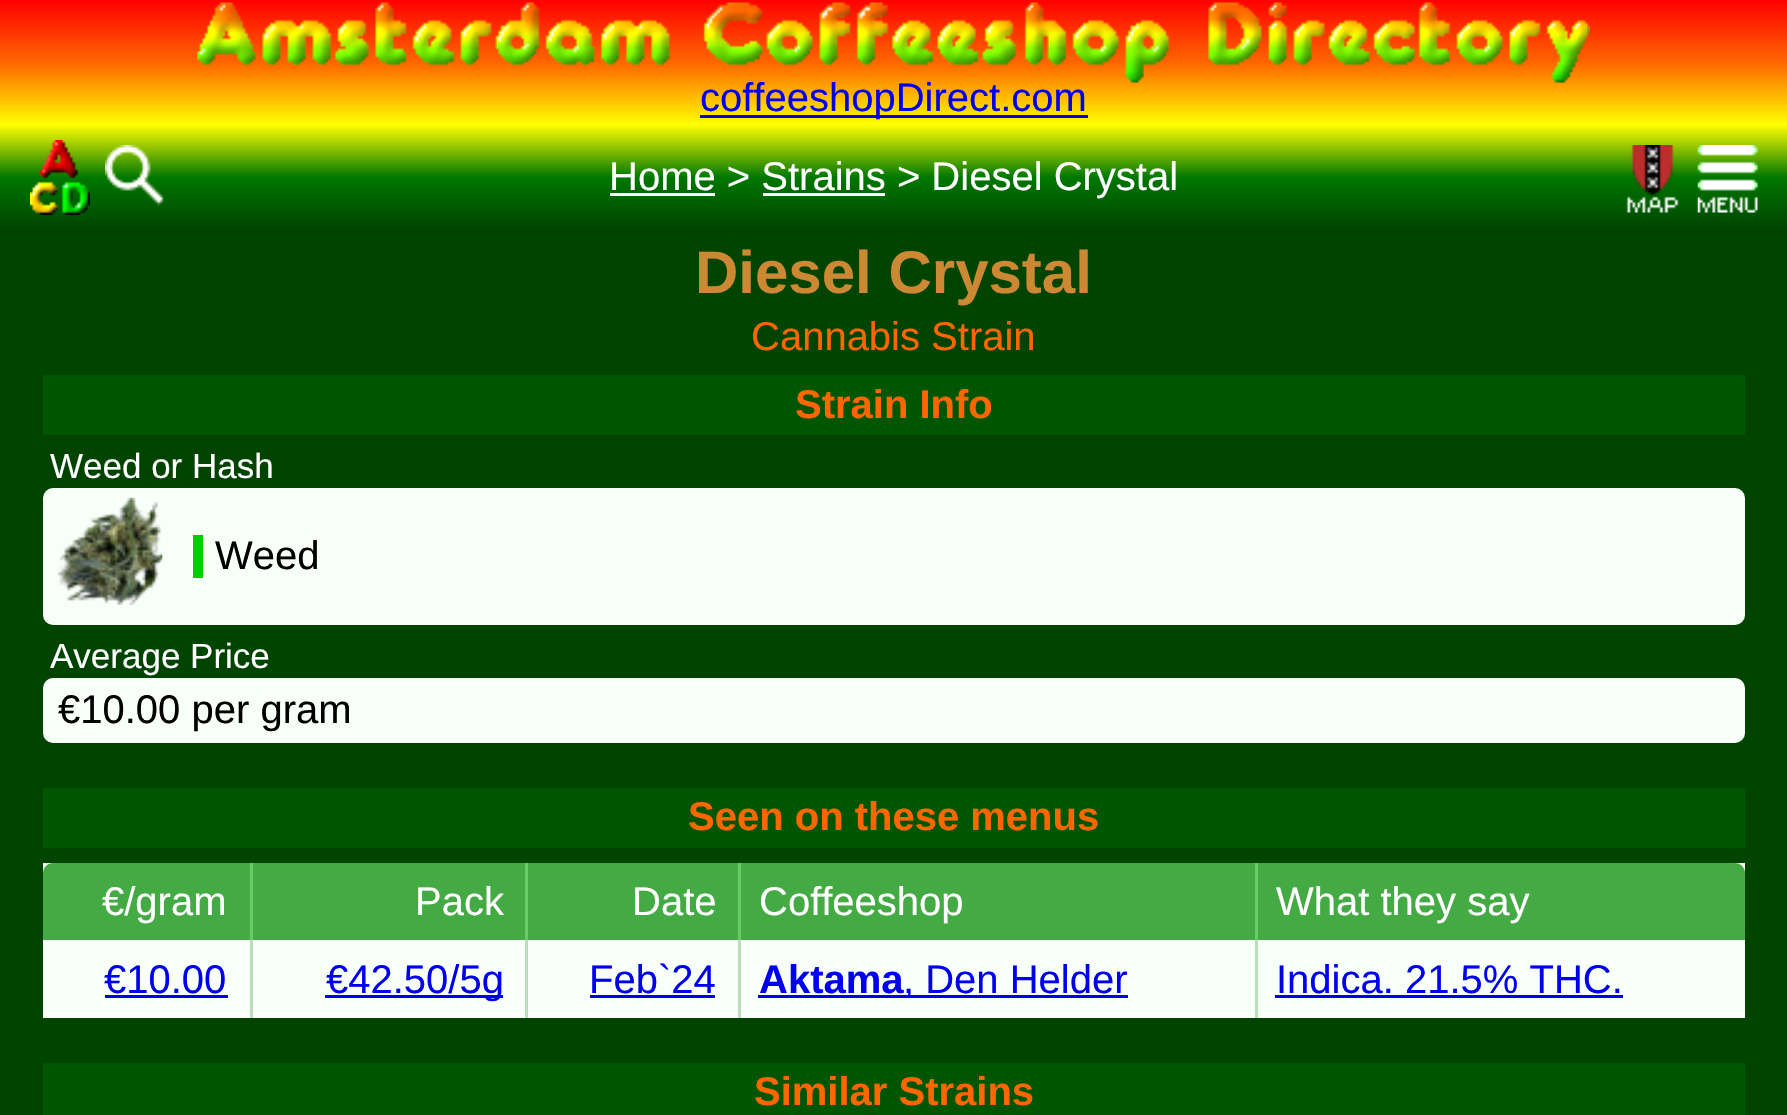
void draw(SkCanvas* c) {
SkPaint p;
p.setAntiAlias(true);
auto F=[&](const char* family, int weight, float size, bool italic = false){SkFontStyle style(weight, SkFontStyle::kNormal_Width,italic ? SkFontStyle::kItalic_Slant : SkFontStyle::kUpright_Slant);SkFont result(fontMgr->matchFamilyStyle(family, style), size);result.setSubpixel(true);return result;};
auto T=[&](const char* s, float x, float y, const SkFont& font){c->drawString(s, x, y, font, p);};
auto R=[&](float x, float y, float w, float h){c->drawRect(SkRect::MakeXYWH(x, y, w, h), p);};
auto Q=[&](float x, float y, float w, float h, float radius){c->drawRoundRect(SkRect::MakeXYWH(x, y, w, h), radius, radius, p);};
auto I=[&](const char* path, float x, float y, float w, float h){auto image = SkImages::DeferredFromEncodedData(SkData::MakeFromFileName(path));c->drawImageRect(image, SkRect::MakeXYWH(x, y, w, h), SkSamplingOptions());};
auto P=[&](const char* data, bool evenOdd = false){SkPath result = *SkParsePath::FromSVGString(data);if (evenOdd) result.setFillType(SkPathFillType::kEvenOdd);return result;};
c->clear(0xff004400);
{
const SkColor colors[] = {0xffff0000,0xffff6600,0xffffff00};
const float stops[] = {0,.5,1};
const SkPoint ends[] = {{894,0}, {894,125}};
p.setShader(SkGradientShader::MakeLinear(ends, colors, stops, 3, SkTileMode::kClamp));
p.setAlpha(255);
}
R(0,0,1787,125);
I("1.png",197,2,1393,81);
p.setShader(nullptr);
p.setColor(0xff0000ee);
R(700,115,388,3);
auto f1 = F("Liberation Sans",400,40);
T("coffeeshopDirect.com",700,111,f1);
{
const SkColor colors[] = {0xffffff00,0xff007700,0xff004400};
const float stops[] = {0,.5,1};
const SkPoint ends[] = {{894,125}, {894,230}};
p.setShader(SkGradientShader::MakeLinear(ends, colors, stops, 3, SkTileMode::kClamp));
p.setAlpha(255);
}
R(0,125,1787,102);
I("2.png",30,140,60,75);
I("3.png",105,145,59,61);
p.setShader(nullptr);
p.setColor(0xffffffff);
R(610,193,105,3);
T("Home > Strains > Diesel Crystal",609,190,f1);
R(763,193,122,3);
I("4.png",1626,145,53,68);
I("5.png",1697,145,61,68);
auto f2 = F("Liberation Sans",700,60);
p.setColor(0xffcc8833);
T("Diesel Crystal",695,293,f2);
p.setColor(0xffff6600);
T("Cannabis Strain",751,350,f1);
p.setColor(0xff005500);
R(43,375,1702,60);
auto f3 = F("Liberation Sans",700,40);
p.setColor(0xffff6600);
T("Strain Info",795,418,f3);
auto f4 = F("Liberation Sans",400,35);
p.setColor(0xffffffff);
T("Weed or Hash",50,478,f4);
p.setColor(0xfff8fff8);
Q(43,488,1702,137,10);
I("6.png",57,497,106,108);
p.setColor(0xff00cc00);
R(193,535,10,43);
p.setColor(0xff000000);
T("Weed",215,569,f1);
p.setColor(0xffffffff);
T("Average Price",50,668,f4);
p.setColor(0xfff8fff8);
Q(43,678,1702,65,10);
p.setColor(0xff000000);
T("€10.00 per gram",58,723,f1);
p.setColor(0xff005500);
R(43,1063,1702,52);
p.setColor(0xffff6600);
T("Similar Strains",754,1105,f3);
p.setColor(0xff005500);
R(43,788,1702,60);
p.setColor(0xffff6600);
T("Seen on these menus",688,830,f3);
p.setColor(0xfff8fff8);
R(43,863,1702,10);
p.setColor(0xff44aa44);
c->drawPath(P("M53 863h197v77h-207v-67c0-5.5 4.5-10 10-10z"),p);
p.setColor(0xffffffff);
T("€/gram",102,915,f1);
p.setColor(0xff44aa44);
R(253,863,272,77);
p.setColor(0xff66cc66);
R(250,863,3,77);
p.setColor(0xffffffff);
T("Pack",415,915,f1);
p.setColor(0xff44aa44);
R(528,863,210,77);
p.setColor(0xff66cc66);
R(525,863,3,77);
p.setColor(0xffffffff);
T("Date",632,915,f1);
p.setColor(0xff44aa44);
R(741,863,514,77);
p.setColor(0xff66cc66);
R(738,863,3,77);
p.setColor(0xffffffff);
T("Coffeeshop",759,915,f1);
p.setColor(0xff44aa44);
c->drawPath(P("M1255 863h480c5.5 0 10 4.5 10 10v67h-490z"),p);
p.setColor(0xff66cc66);
R(1255,863,3,77);
p.setColor(0xffffffff);
T("What they say",1276,915,f1);
p.setColor(0xfff8fff8);
R(43,940,1702,78);
p.setColor(0xff0000ee);
T("€10.00",104,993,f1);
R(105,995,123,3);
p.setColor(0xffbbddbb);
R(250,940,3,78);
p.setColor(0xff0000ee);
R(325,995,178,3);
T("€42.50/5g",326,993,f1);
p.setColor(0xffbbddbb);
R(525,940,3,78);
p.setColor(0xff0000ee);
T("Feb`24",589,993,f1);
R(590,995,125,3);
p.setColor(0xffbbddbb);
R(738,940,3,78);
p.setColor(0xff0000ee);
T("Aktama",759,993,f3);
R(758,995,370,3);
T(", Den Helder",903,993,f1);
p.setColor(0xffbbddbb);
R(1255,940,3,78);
p.setColor(0xff0000ee);
T("Indica. 21.5% THC.",1276,993,f1);
R(1275,995,348,3);
}
